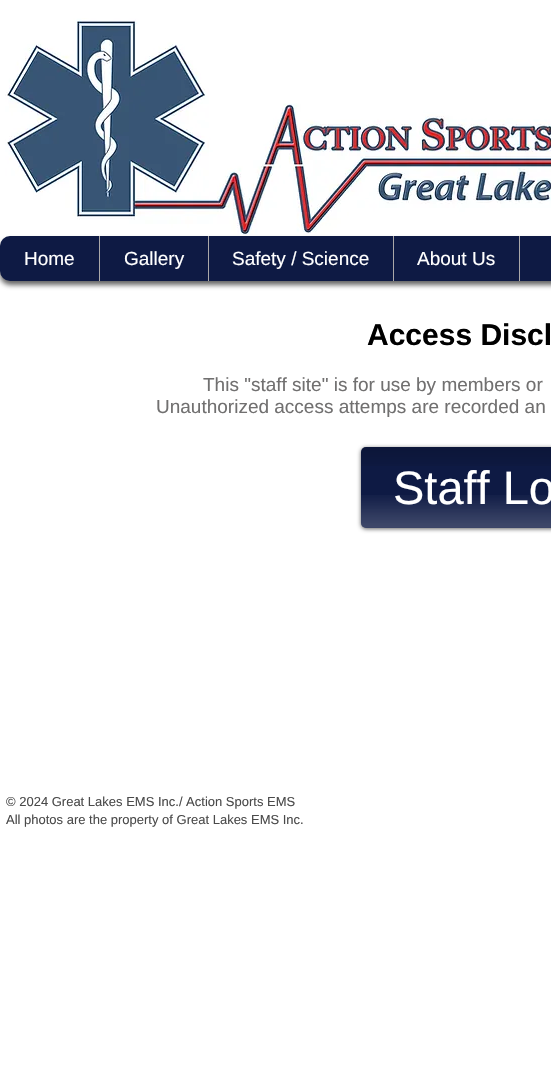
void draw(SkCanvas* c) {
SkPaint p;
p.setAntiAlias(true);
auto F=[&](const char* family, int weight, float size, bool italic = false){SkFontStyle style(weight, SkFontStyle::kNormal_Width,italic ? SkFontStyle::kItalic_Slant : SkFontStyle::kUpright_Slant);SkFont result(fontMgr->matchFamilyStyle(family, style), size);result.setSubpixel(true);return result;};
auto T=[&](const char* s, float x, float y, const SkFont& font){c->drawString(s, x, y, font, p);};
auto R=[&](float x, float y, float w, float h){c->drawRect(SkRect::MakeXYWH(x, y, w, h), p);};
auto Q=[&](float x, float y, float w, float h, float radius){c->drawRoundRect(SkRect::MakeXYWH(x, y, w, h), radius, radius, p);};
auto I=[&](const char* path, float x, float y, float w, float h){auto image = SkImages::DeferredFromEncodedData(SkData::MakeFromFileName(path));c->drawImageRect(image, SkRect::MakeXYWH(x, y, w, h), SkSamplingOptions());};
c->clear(0xffffffff);
I("1.png",5,18,546,217);
p.setColor(0x99000000);
p.setMaskFilter(SkMaskFilter::MakeBlur(kNormal_SkBlurStyle, 2.5));
c->drawRoundRect(SkRect::MakeXYWH(0,240,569,45),10,10,p);
p.setMaskFilter(nullptr);
p.setColor(0xff0e1a44);
Q(0,236,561,45,10);
auto f1 = F("Liberation Sans",400,19);
p.setColor(0xffffffff);
T("Home",24,265,f1);
p.setColor(0xffaaa8a8);
R(99,236,1,45);
p.setColor(0xffffffff);
T("Gallery",124,265,f1);
p.setColor(0xffaaa8a8);
R(208,236,1,45);
p.setColor(0xffffffff);
T("Safety / Science",232,265,f1);
p.setColor(0xffaaa8a8);
R(393,236,1,45);
p.setColor(0xffffffff);
T("About Us",417,265,f1);
p.setColor(0xffaaa8a8);
R(519,236,1,45);
auto f2 = F("Liberation Sans",700,30);
p.setColor(0xff000000);
T("Access Discl",367,345,f2);
p.setColor(0xff717070);
T("This \"staff site\" is for use by members or",203,391,f1);
T("Unauthorized access attemps are recorded an",156,413,f1);
p.setColor(0x99000000);
p.setMaskFilter(SkMaskFilter::MakeBlur(kNormal_SkBlurStyle, 2));
c->drawRoundRect(SkRect::MakeXYWH(361,448,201,81),5,5,p);
p.setMaskFilter(nullptr);
p.setColor(0xff0e1a44);
Q(361,447,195,81,5);
I("2.png",361,447,190,19);
I("3.png",361,495,190,33);
auto f3 = F("Liberation Sans",400,47);
p.setColor(0xffffffff);
T("Staff Lo",393,504,f3);
auto f4 = F("Liberation Sans",400,13);
p.setColor(0xff4a4a4a);
T("© 2024 Great Lakes EMS Inc./ Action Sports EMS",6,806,f4);
T("All photos are the property of Great Lakes EMS Inc.",6,824,f4);
}
